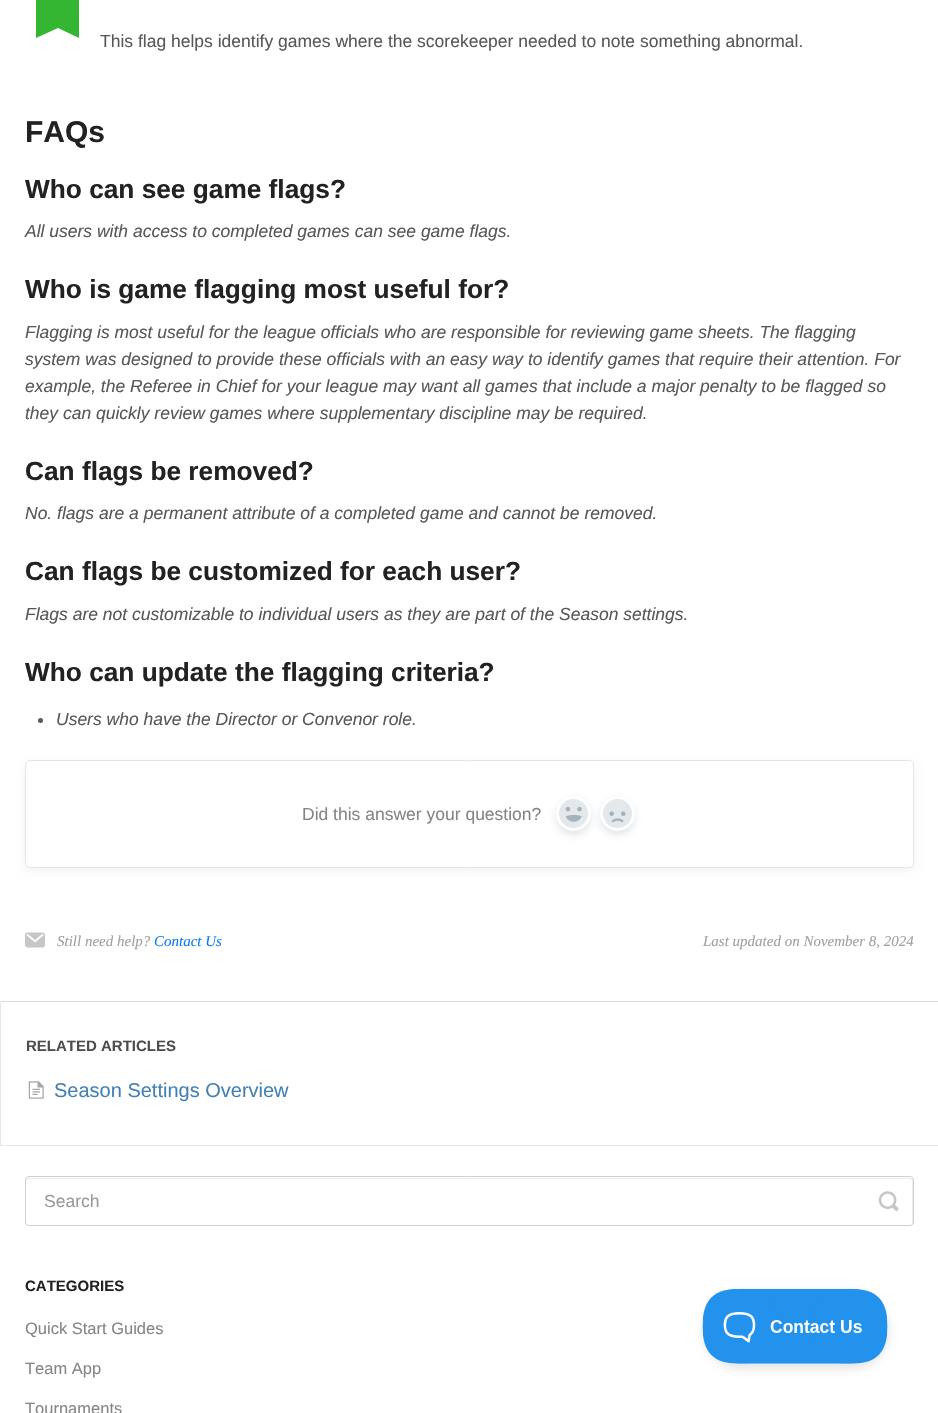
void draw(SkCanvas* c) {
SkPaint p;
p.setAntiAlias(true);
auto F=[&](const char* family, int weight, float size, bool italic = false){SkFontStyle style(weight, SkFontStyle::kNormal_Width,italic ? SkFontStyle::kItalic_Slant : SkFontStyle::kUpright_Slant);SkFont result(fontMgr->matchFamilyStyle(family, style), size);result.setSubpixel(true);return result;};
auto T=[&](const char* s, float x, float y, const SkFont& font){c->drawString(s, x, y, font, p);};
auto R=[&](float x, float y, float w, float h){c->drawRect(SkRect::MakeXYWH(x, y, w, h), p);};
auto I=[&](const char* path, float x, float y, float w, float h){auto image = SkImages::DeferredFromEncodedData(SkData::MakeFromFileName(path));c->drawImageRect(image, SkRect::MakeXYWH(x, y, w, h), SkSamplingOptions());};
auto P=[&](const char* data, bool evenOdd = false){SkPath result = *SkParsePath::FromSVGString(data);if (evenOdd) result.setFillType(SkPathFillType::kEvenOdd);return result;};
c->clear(0xffffffff);
p.setColor(0xffdedede);
R(0,1001,938,1);
p.setColor(0xff34b632);
c->drawPath(P("M73-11c3 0 6 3 6 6v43l-21-10l-22 10v-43c0-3 3-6 6-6c10-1 21-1 31 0z"),p);
auto f1 = F("Liberation Sans",400,17.5);
p.setColor(0xff585858);
T("This flag helps identify games where the scorekeeper needed to note something abnormal.",100,47,f1);
auto f2 = F("Liberation Sans",700,30);
p.setColor(0xff222222);
T("FAQs",25,142,f2);
auto f3 = F("Liberation Sans",700,26.25);
T("Who can see game flags?",25,198,f3);
auto f4 = F("Liberation Sans",400,17.5,true);
p.setColor(0xff585858);
T("All users with access to completed games can see game flags.",25,237,f4);
p.setColor(0xff222222);
T("Who is game flagging most useful for?",25,298,f3);
p.setColor(0xff585858);
T("Flagging is most useful for the league officials who are responsible for reviewing game sheets. The flagging",25,338,f4);
T("system was designed to provide these officials with an easy way to identify games that require their attention. For",25,365,f4);
T("example, the Referee in Chief for your league may want all games that include a major penalty to be flagged so",25,392,f4);
T("they can quickly review games where supplementary discipline may be required.",25,419,f4);
p.setColor(0xff222222);
T("Can flags be removed?",25,480,f3);
p.setColor(0xff585858);
T("No. flags are a permanent attribute of a completed game and cannot be removed.",25,519,f4);
p.setColor(0xff222222);
T("Can flags be customized for each user?",25,580,f3);
p.setColor(0xff585858);
T("Flags are not customizable to individual users as they are part of the Season settings.",25,620,f4);
p.setColor(0xff222222);
T("Who can update the flagging criteria?",25,681,f3);
p.setColor(0xff585858);
c->drawCircle(40.5,720.5,2.5,p);
T("Users who have the Director or Convenor role.",56,725,f4);
p.setColor(0x0d000000);
p.setMaskFilter(SkMaskFilter::MakeBlur(kNormal_SkBlurStyle, 4));
c->drawRoundRect(SkRect::MakeXYWH(25,764,889,107),5,5,p);
p.setMaskFilter(nullptr);
p.setColor(0xffffffff);
c->drawRoundRect(SkRect::MakeXYWH(25.5,760.5,888,107),4.5,4.5,p);
p.setStroke(true);
p.setStrokeWidth(1);
p.setColor(0xffe9e5e5);
c->drawRoundRect(SkRect::MakeXYWH(25.5,760.5,888,107),4.5,4.5,p);
p.setStroke(false);
p.setColor(0xff858585);
T("Did this answer your question?",302,820,f1);
p.setColor(0x80c1cbd4);
p.setMaskFilter(SkMaskFilter::MakeBlur(kNormal_SkBlurStyle, 4));
c->drawRoundRect(SkRect::MakeXYWH(556,800,35,35),17.5,17.5,p);
p.setMaskFilter(nullptr);
p.setColor(0xffe3e8eb);
c->drawCircle(573.5,813.5,16,p);
p.setStroke(true);
p.setStrokeWidth(3);
p.setColor(0xffffffff);
c->drawCircle(573.5,813.5,16,p);
I("1.png",565,806,17,16);
p.setStroke(false);
p.setColor(0x80c1cbd4);
p.setMaskFilter(SkMaskFilter::MakeBlur(kNormal_SkBlurStyle, 4));
c->drawRoundRect(SkRect::MakeXYWH(600,800,35,35),17.5,17.5,p);
p.setMaskFilter(nullptr);
p.setColor(0xffe3e8eb);
c->drawCircle(617.5,813.5,16,p);
p.setStroke(true);
p.setColor(0xffffffff);
c->drawCircle(617.5,813.5,16,p);
I("2.png",609,811,17,12);
I("3.png",25,932,20,16);
auto f5 = F("Liberation Serif",400,15,true);
p.setStroke(false);
p.setColor(0xffa0a0a0);
T("Still need help?",57,946,f5);
p.setColor(0xff097aff);
T("Contact Us",154,946,f5);
p.setColor(0xffa0a0a0);
T("Last updated on November 8, 2024",703,946,f5);
p.setColor(0xffe9e5e5);
R(0,1145,938,1);
R(0,1003,1,143);
auto f6 = F("Liberation Sans",700,15);
p.setColor(0xff4d4d4d);
T("RELATED ARTICLES",26,1051,f6);
I("4.png",28,1081,16,18);
auto f7 = F("Liberation Sans",400,20);
p.setColor(0xff4381b5);
T("Season Settings Overview",54,1097,f7);
p.setColor(0xffececec);
c->drawPath(P("M29 1179h881c1 0 2 1 2 2v44c1-1 1-2 1-3v-42c0-1-1-2-3-2h-882c-1 0-2 1-2 2v1c0-1 1-2 3-2z"),p);
p.setStroke(true);
p.setStrokeWidth(1);
p.setColor(0xffd0d0d0);
c->drawRoundRect(SkRect::MakeXYWH(25.5,1176.5,888,49),3.5,3.5,p);
p.setStroke(false);
p.setColor(0xff999999);
T("Search",44,1207,f1);
I("5.png",878,1191,21,21);
p.setColor(0xff222222);
T("CATEGORIES",25,1291,f6);
auto f8 = F("Liberation Sans",400,16.5);
p.setColor(0xff858585);
T("Quick Start Guides",25,1334,f8);
T("Team App",25,1374,f8);
T("Tournaments",25,1414,f8);
p.setColor(0x1a000000);
p.setMaskFilter(SkMaskFilter::MakeBlur(kNormal_SkBlurStyle, 4.5));
c->drawRoundRect(SkRect::MakeXYWH(703,1294,186,75),37.5,37.5,p);
p.setMaskFilter(nullptr);
I("6.png",702,1288,186,76);
}
